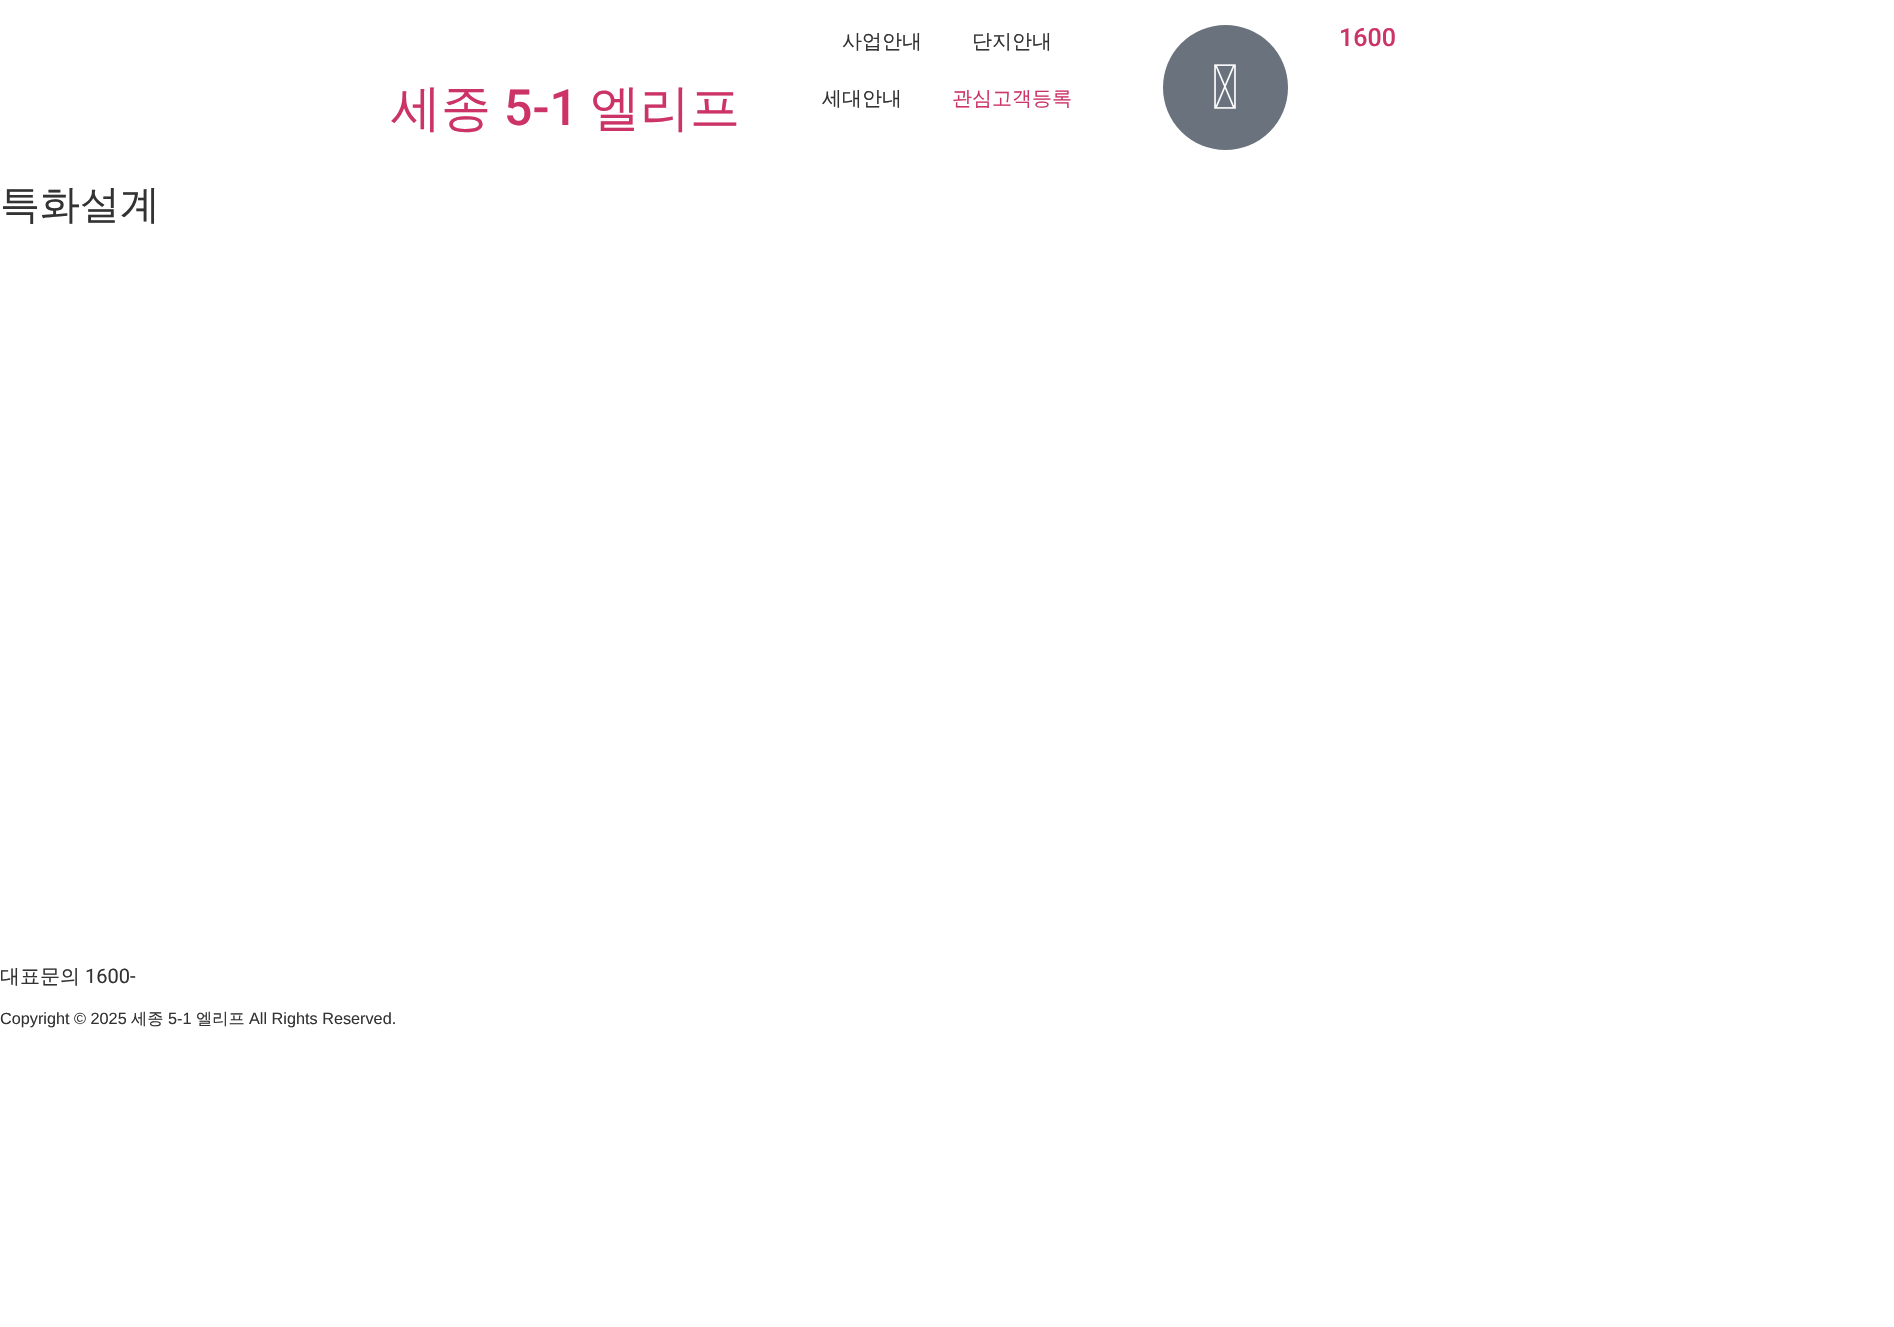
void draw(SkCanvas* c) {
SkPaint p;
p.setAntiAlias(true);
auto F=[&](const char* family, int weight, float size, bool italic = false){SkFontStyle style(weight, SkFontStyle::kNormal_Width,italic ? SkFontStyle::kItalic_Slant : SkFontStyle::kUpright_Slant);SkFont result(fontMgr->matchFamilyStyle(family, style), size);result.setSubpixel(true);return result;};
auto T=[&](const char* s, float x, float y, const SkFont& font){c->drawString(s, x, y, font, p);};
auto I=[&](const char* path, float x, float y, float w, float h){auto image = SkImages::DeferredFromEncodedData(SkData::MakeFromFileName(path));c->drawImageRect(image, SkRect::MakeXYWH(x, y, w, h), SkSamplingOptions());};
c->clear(0xffffffff);
auto f1 = F("WenQuanYi Zen Hei",500,50);
p.setColor(0xffcc3366);
T("세종",391,125,f1);
auto f2 = F("Roboto",500,50);
T("5-1",504,125,f2);
T("엘리프",590,125,f1);
auto f3 = F("WenQuanYi Zen Hei",500,20);
p.setColor(0xff333333);
T("사업안내",842,48,f3);
T("단지안내",972,48,f3);
T("세대안내",822,105,f3);
p.setColor(0xffcc3366);
T("관심고객등록",952,105,f3);
p.setColor(0xff69727d);
c->drawCircle(1225.5,87.5,62.5,p);
I("1.png",1214,64,22,45);
auto f4 = F("Roboto",500,25);
p.setColor(0xffcc3366);
T("1600",1339,46,f4);
auto f5 = F("WenQuanYi Zen Hei",500,40);
p.setColor(0xff333333);
T("특화설계",0,218,f5);
T("대표문의",0,983,f3);
auto f6 = F("Roboto",400,20);
T("1600-",85,983,f6);
auto f7 = F("Liberation Sans",400,16.25);
T("Copyright © 2025",0,1024,f7);
auto f8 = F("WenQuanYi Zen Hei",500,16.25);
T("세종",131,1024,f8);
T("5-1",168,1024,f7);
T("엘리프",196,1024,f8);
T("All Rights Reserved.",249,1024,f7);
}
